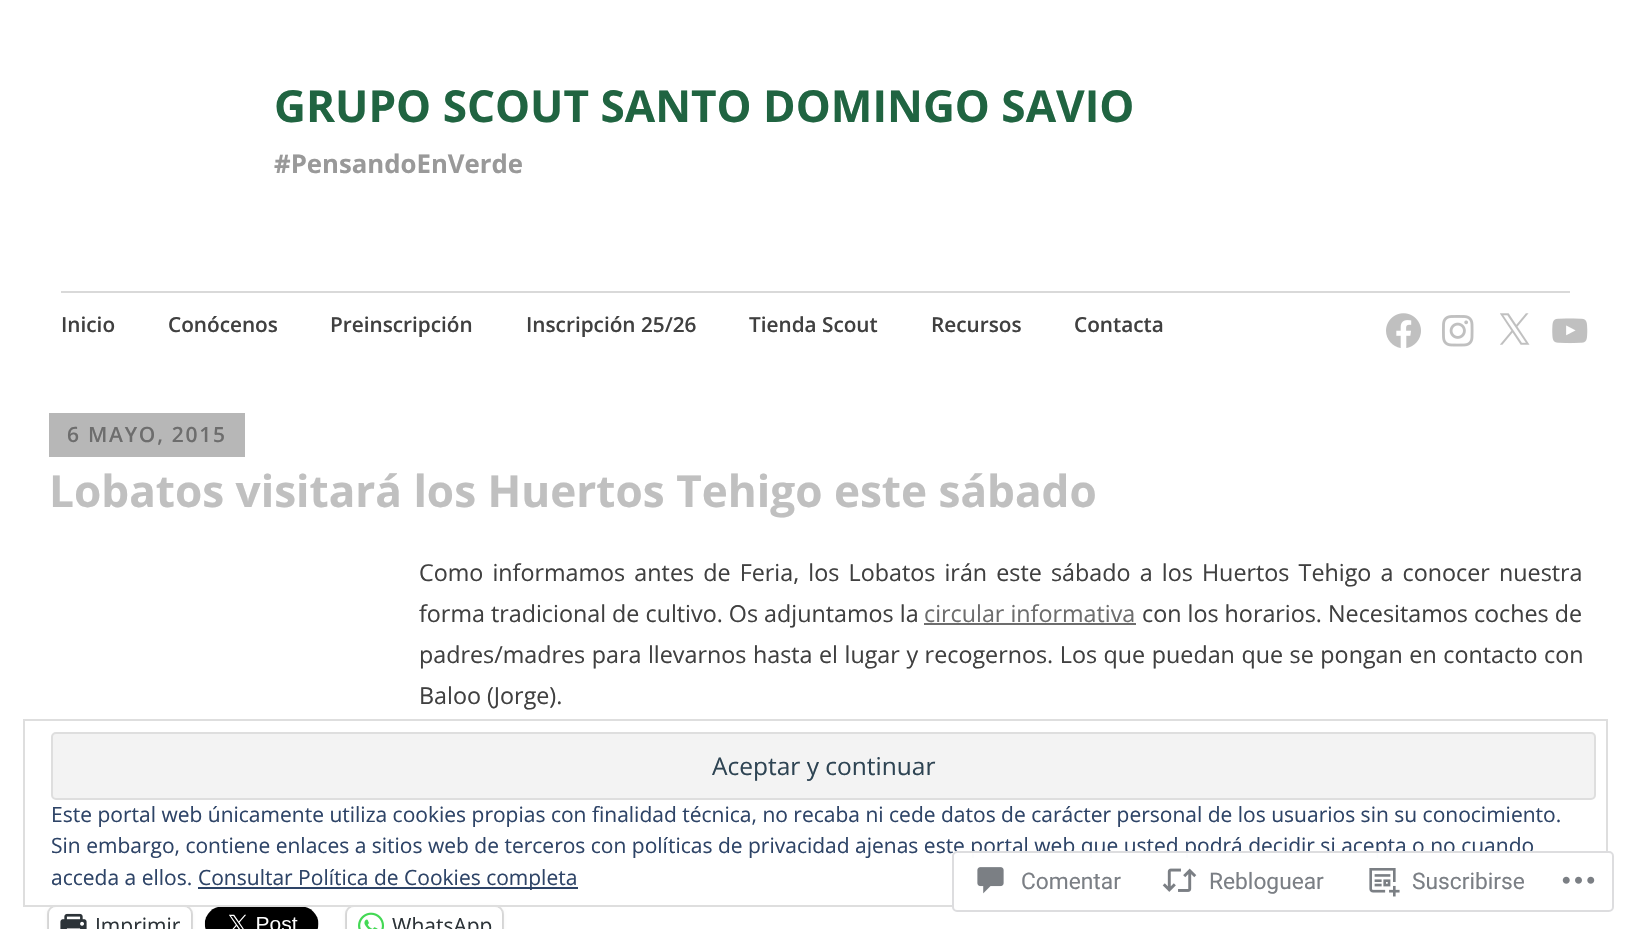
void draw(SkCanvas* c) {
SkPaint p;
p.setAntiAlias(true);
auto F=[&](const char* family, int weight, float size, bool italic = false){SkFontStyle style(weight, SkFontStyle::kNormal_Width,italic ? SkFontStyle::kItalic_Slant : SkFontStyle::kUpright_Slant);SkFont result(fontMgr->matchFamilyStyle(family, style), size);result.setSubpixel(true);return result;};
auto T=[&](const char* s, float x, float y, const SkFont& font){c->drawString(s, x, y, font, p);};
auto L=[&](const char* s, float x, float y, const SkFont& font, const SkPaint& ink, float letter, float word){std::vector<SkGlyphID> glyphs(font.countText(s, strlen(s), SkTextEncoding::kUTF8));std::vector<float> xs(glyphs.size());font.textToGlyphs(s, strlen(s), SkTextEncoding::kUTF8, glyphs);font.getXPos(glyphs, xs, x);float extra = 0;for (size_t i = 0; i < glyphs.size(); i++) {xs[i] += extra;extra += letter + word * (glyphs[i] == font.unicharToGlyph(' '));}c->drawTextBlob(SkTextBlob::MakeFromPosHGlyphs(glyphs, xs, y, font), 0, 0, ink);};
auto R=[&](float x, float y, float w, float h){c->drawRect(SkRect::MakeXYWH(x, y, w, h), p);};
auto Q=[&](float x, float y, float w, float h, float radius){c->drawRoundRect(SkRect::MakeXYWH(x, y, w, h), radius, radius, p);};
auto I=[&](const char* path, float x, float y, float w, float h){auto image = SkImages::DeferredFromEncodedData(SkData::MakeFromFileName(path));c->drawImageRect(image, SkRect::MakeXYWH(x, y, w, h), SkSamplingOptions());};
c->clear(0xffffffff);
auto f1 = F("Open Sans",700,44.1);
p.setColor(0xff206441);
T("GRUPO SCOUT SANTO DOMINGO SAVIO",274,122,f1);
auto f2 = F("Open Sans",700,25.75);
p.setColor(0xff999999);
T("#PensandoEnVerde",274,173,f2);
p.setColor(0xffd9d9d9);
R(61,291,1509,2);
auto f3 = F("Open Sans",600,20.75);
p.setColor(0xff404040);
T("Inicio",61,332,f3);
T("Conócenos",168,332,f3);
T("Preinscripción",330,332,f3);
T("Inscripción 25/26",526,332,f3);
T("Tienda Scout",749,332,f3);
T("Recursos",931,332,f3);
T("Contacta",1074,332,f3);
I("1.png",1386,313,35,35);
I("2.png",1442,315,32,32);
I("3.png",1500,313,30,32);
I("4.png",1552,318,36,26);
p.setColor(0xffb7b7b7);
R(49,413,196,44);
auto f4 = F("Open Sans",600,21);
p.setColor(0xff6d6d6d);
L("6 MAYO, 2015",67,442,f4,p,1.75,0);
p.setColor(0xffc0c0c0);
T("Lobatos visitará los Huertos Tehigo este sábado",49,507,f1);
auto f5 = F("Open Sans",400,23.3);
p.setColor(0xff404040);
L("Como informamos antes de Feria, los Lobatos irán este sábado a los Huertos Tehigo a conocer nuestra",419,581,f5,p,0,3.1);
T("forma tradicional de cultivo. Os adjuntamos la",419,622,f5);
p.setColor(0xff6d6d6d);
T("circular informativa",924,622,f5);
R(924,623,212,2);
p.setColor(0xff404040);
T("con los horarios. Necesitamos coches de",1142,622,f5);
L("padres/madres para llevarnos hasta el lugar y recogernos. Los que puedan que se pongan en contacto con",419,663,f5,p,0,.5);
T("Baloo (Jorge).",419,704,f5);
p.setStroke(true);
p.setStrokeWidth(2);
p.setColor(0xffe0e0e0);
c->drawRoundRect(SkRect::MakeXYWH(48,906,144,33),8,8,p);
p.setStroke(false);
p.setColor(0x1f000000);
p.setMaskFilter(SkMaskFilter::MakeBlur(kNormal_SkBlurStyle, 2));
c->drawRoundRect(SkRect::MakeXYWH(49,908,142,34),7,7,p);
p.setMaskFilter(nullptr);
p.setColor(0xffffffff);
Q(49,907,142,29,7);
I("5.png",60,913,27,16);
auto f6 = F("Open Sans",400,21);
p.setColor(0xff2c3338);
T("Imprimir",95,933,f6);
I("6.png",204,907,115,22);
p.setStroke(true);
p.setColor(0xffe0e0e0);
c->drawRoundRect(SkRect::MakeXYWH(346,906,157,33),8,8,p);
p.setStroke(false);
p.setColor(0x1f000000);
p.setMaskFilter(SkMaskFilter::MakeBlur(kNormal_SkBlurStyle, 2));
c->drawRoundRect(SkRect::MakeXYWH(347,908,155,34),7,7,p);
p.setMaskFilter(nullptr);
p.setColor(0xffffffff);
Q(347,907,155,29,7);
I("7.png",358,912,26,17);
p.setColor(0xff2c3338);
T("WhatsApp",392,933,f6);
p.setStroke(true);
p.setColor(0xffdedede);
c->drawRect(SkRect::MakeXYWH(24,720,1583,186),p);
p.setStroke(false);
p.setColor(0xfff3f3f3);
c->drawRoundRect(SkRect::MakeXYWH(52,733,1543,66),4,4,p);
p.setStroke(true);
p.setColor(0xffdedede);
c->drawRoundRect(SkRect::MakeXYWH(52,733,1543,66),4,4,p);
auto f7 = F("Open Sans",400,24.5);
p.setStroke(false);
p.setColor(0xff2e4453);
T("Aceptar y continuar",712,775,f7);
p.setColor(0xff2e4467);
T("Este portal web únicamente utiliza cookies propias con finalidad técnica, no recaba ni cede datos de carácter personal de los usuarios sin su conocimiento.",51,822,f6);
T("Sin embargo, contiene enlaces a sitios web de terceros con políticas de privacidad ajenas este portal web que usted podrá decidir si acepta o no cuando",51,853,f6);
T("acceda a ellos.",51,885,f6);
R(198,887,380,2);
T("Consultar Política de Cookies completa",198,885,f6);
p.setColor(0xfaffffff);
Q(952,851,662,61,5);
p.setStroke(true);
p.setColor(0xfadcdcde);
c->drawRoundRect(SkRect::MakeXYWH(953,852,660,59),4,4,p);
I("8.png",977,867,27,27);
auto f8 = F("Roboto",400,22.75);
p.setStroke(false);
p.setColor(0xff7b7f85);
T("Comentar",1021,889,f8);
I("9.png",1162,868,35,24);
T("Rebloguear",1209,889,f8);
I("10.png",1369,868,31,29);
T("Suscribirse",1412,889,f8);
I("11.png",1562,876,33,8);
}
